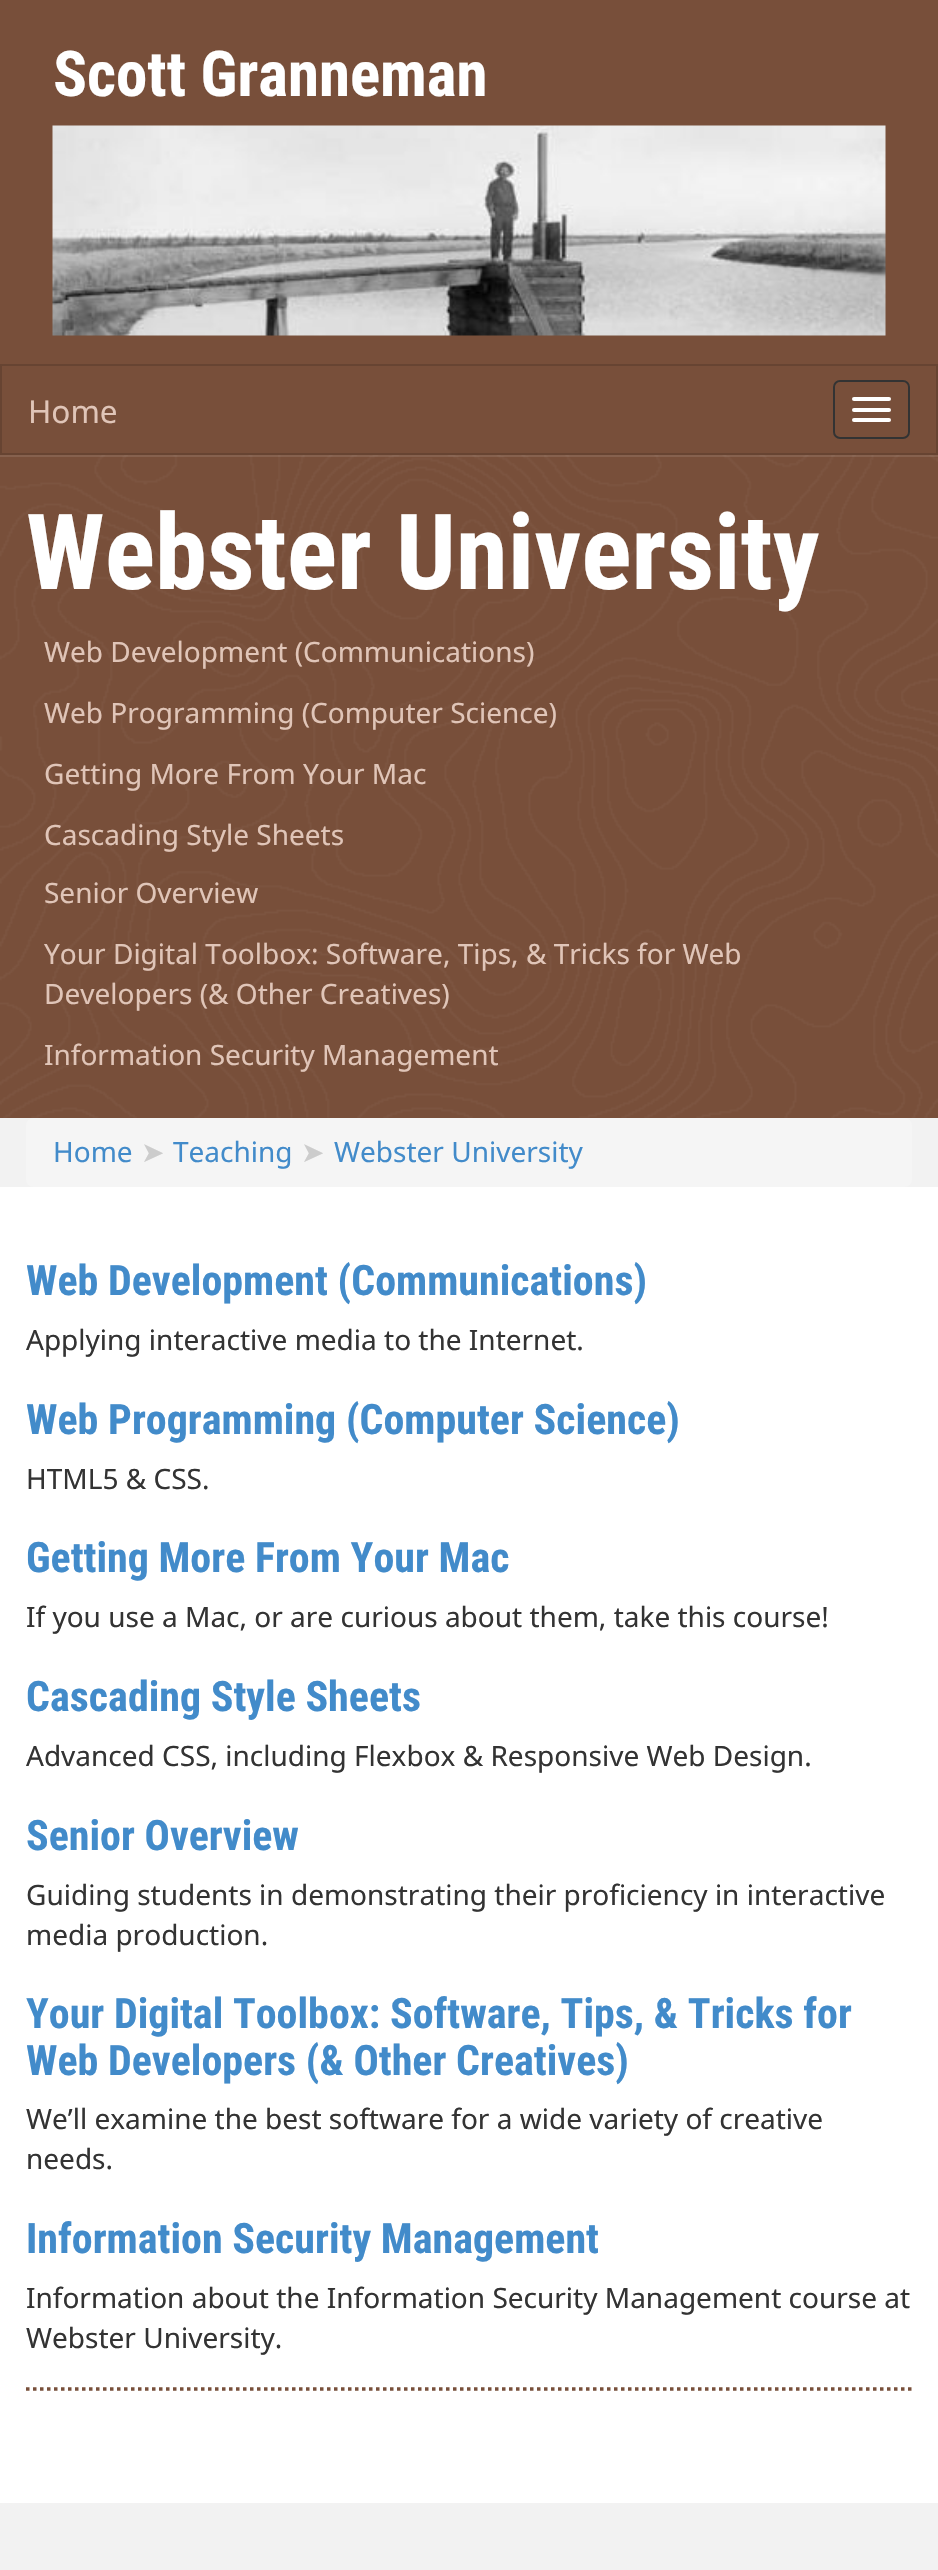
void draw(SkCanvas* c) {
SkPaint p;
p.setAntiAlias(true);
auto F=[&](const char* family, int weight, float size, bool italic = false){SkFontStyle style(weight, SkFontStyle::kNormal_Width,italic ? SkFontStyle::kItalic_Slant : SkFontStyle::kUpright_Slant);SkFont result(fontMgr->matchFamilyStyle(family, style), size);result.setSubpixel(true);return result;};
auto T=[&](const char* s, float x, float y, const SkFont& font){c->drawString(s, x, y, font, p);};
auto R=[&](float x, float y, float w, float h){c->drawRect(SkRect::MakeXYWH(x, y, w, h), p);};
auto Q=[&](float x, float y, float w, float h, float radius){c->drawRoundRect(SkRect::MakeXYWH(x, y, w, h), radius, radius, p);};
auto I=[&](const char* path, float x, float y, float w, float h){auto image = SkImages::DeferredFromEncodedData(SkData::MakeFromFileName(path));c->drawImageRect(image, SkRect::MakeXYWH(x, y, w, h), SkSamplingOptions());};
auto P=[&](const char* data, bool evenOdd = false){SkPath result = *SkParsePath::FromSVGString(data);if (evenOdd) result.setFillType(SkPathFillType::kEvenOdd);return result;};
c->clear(0xffffffff);
p.setColor(0xff784f3a);
R(0,0,938,364);
auto f1 = F("Roboto Condensed",700,63);
p.setColor(0xffffffff);
T("Scott Granneman",53,96,f1);
I("1.png",52,125,834,211);
p.setColor(0xff784f3a);
R(0,455,938,663);
I("2.png",0,455,938,663);
p.setColor(0x1affffff);
R(0,455,938,2);
p.setColor(0xff784f3a);
c->drawRect(SkRect::MakeXYWH(1,365,936,89),p);
p.setStroke(true);
p.setStrokeWidth(2);
p.setColor(0xff674432);
c->drawRect(SkRect::MakeXYWH(1,365,936,89),p);
auto f2 = F("Noto Sans",400,31.5);
p.setStroke(false);
p.setColor(0xffe0c5b8);
T("Home",28,423,f2);
p.setStroke(true);
p.setColor(0xff333333);
c->drawRoundRect(SkRect::MakeXYWH(834,381,75,57),6,6,p);
p.setStroke(false);
p.setColor(0xffffffff);
Q(852,397,39,4,2);
Q(852,408,39,4,2);
Q(852,418,39,4,2);
auto f3 = F("Roboto Condensed",700,105);
T("Webster University",26,589,f3);
auto f4 = F("Noto Sans",400,28);
p.setColor(0xffe0c5b8);
T("Web Development (Communications)",44,662,f4);
T("Web Programming (Computer Science)",44,723,f4);
T("Getting More From Your Mac",44,784,f4);
T("Cascading Style Sheets",44,845,f4);
T("Senior Overview",44,903,f4);
T("Your Digital Toolbox: Software, Tips, & Tricks for Web",44,964,f4);
T("Developers (& Other Creatives)",44,1004,f4);
T("Information Security Management",44,1065,f4);
p.setColor(0xfff2f2f2);
R(0,1118,938,69);
p.setColor(0xfff5f5f5);
Q(26,1118,886,69,7);
p.setColor(0xff428bca);
T("Home",53,1162,f4);
auto f5 = F("DejaVu Sans",400,28);
p.setColor(0xffcccccc);
T("➤",141,1162,f5);
p.setColor(0xff428bca);
T("Teaching",173,1162,f4);
p.setColor(0xffcccccc);
T("➤",301,1162,f5);
p.setColor(0xff428bca);
T("Webster University",334,1162,f4);
p.setStroke(true);
p.setStrokeWidth(3.5);
p.setColor(0xff784f3a);
p.setPathEffect(SkDashPathEffect::Make({{3.5f,3.5f}}, 0));
c->drawPath(P("M26 2389h886"),p);
p.setPathEffect(nullptr);
auto f6 = F("Roboto Condensed",700,42);
p.setStroke(false);
p.setColor(0xff428bca);
T("Web Development (Communications)",26,1295,f6);
p.setColor(0xff333333);
T("Applying interactive media to the Internet.",26,1350,f4);
p.setColor(0xff428bca);
T("Web Programming (Computer Science)",26,1434,f6);
p.setColor(0xff333333);
T("HTML5 & CSS.",26,1489,f4);
p.setColor(0xff428bca);
T("Getting More From Your Mac",26,1572,f6);
p.setColor(0xff333333);
T("If you use a Mac, or are curious about them, take this course!",26,1627,f4);
p.setColor(0xff428bca);
T("Cascading Style Sheets",26,1711,f6);
p.setColor(0xff333333);
T("Advanced CSS, including Flexbox & Responsive Web Design.",26,1766,f4);
p.setColor(0xff428bca);
T("Senior Overview",26,1850,f6);
p.setColor(0xff333333);
T("Guiding students in demonstrating their proficiency in interactive",26,1905,f4);
T("media production.",26,1945,f4);
p.setColor(0xff428bca);
T("Your Digital Toolbox: Software, Tips, & Tricks for",26,2028,f6);
T("Web Developers (& Other Creatives)",26,2075,f6);
p.setColor(0xff333333);
T("Weʼll examine the best software for a wide variety of creative",26,2129,f4);
T("needs.",26,2169,f4);
p.setColor(0xff428bca);
T("Information Security Management",26,2253,f6);
p.setColor(0xff333333);
T("Information about the Information Security Management course at",26,2308,f4);
T("Webster University.",26,2348,f4);
p.setColor(0xfff2f2f2);
R(0,2503,938,67);
}
